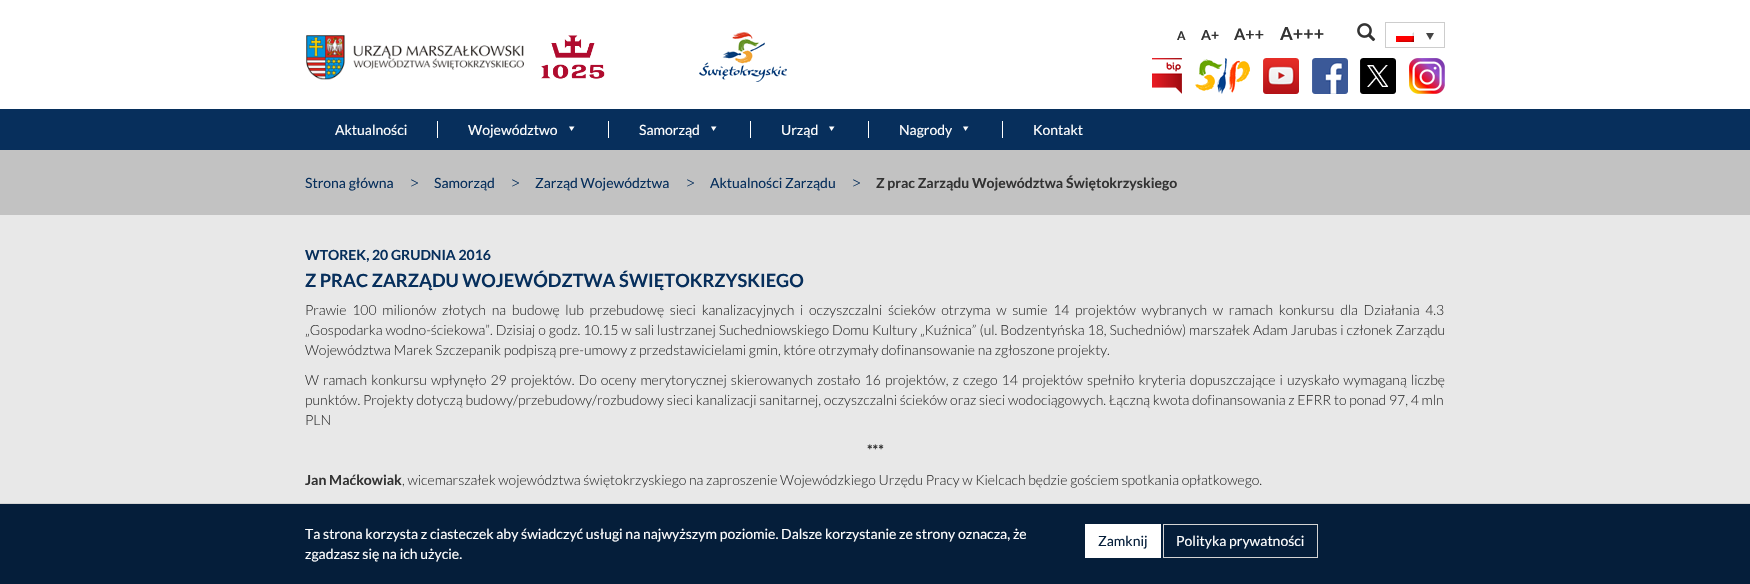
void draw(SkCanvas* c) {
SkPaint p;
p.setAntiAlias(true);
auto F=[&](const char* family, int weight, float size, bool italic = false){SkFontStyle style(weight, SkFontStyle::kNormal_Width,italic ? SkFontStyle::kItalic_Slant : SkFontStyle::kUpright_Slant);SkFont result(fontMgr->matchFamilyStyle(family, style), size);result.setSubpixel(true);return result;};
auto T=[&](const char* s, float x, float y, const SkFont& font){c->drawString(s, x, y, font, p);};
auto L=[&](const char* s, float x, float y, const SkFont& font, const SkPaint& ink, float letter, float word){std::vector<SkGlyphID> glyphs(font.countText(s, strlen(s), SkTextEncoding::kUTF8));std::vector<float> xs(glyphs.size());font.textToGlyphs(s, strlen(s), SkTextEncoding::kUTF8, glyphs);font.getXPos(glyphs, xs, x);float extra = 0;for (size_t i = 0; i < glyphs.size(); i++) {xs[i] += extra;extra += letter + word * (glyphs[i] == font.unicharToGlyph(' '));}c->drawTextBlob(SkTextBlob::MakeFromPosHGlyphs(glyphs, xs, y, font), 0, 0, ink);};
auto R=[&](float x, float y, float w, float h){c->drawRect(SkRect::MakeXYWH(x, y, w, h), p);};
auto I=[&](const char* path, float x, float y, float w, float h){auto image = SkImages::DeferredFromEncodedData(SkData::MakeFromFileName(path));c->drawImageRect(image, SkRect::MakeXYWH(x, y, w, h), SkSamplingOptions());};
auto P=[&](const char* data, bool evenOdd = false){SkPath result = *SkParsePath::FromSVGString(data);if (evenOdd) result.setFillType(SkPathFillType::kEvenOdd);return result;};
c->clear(0xffe8e8e8);
p.setColor(0xffffffff);
R(0,0,1750,109);
I("1.png",306,35,299,45);
I("2.png",699,32,88,50);
auto f1 = F("Lato",700,12);
p.setColor(0xff333333);
T("A",1177,40,f1);
auto f2 = F("Lato",700,14);
T("A+",1201,40,f2);
auto f3 = F("Lato",700,16);
T("A++",1234,40,f3);
auto f4 = F("Lato",700,18);
T("A+++",1280,40,f4);
I("3.png",1357,23,19,19);
p.setStroke(true);
p.setStrokeWidth(1);
p.setColor(0xffcdcdcd);
c->drawRect(SkRect::MakeXYWH(1385.5,22.5,59,25),p);
I("4.png",1396,32,18,10);
p.setStroke(false);
p.setColor(0xff444444);
c->drawPath(P("M1426 33h8l-4 7z"),p);
I("5.png",1152,58,30,36);
I("6.png",1195,58,55,36);
I("7.png",1263,58,36,36);
I("8.png",1312,58,36,36);
I("9.png",1360,58,36,36);
I("10.png",1409,58,36,36);
p.setColor(0xff072f5c);
R(0,109,1750,41);
p.setColor(0xffffffff);
R(437,121,1,17);
auto f5 = F("Lato",400,14);
T("Aktualności",335,135,f5);
R(608,121,1,17);
T("Województwo",468,135,f5);
c->drawPath(P("M574.5 126.5l-3 4.5l-2.5-4.5z"),p);
R(750,121,1,17);
T("Samorząd",639,135,f5);
c->drawPath(P("M716.5 126.5l-3 4.5l-2.5-4.5z"),p);
R(868,121,1,17);
T("Urząd",781,135,f5);
c->drawPath(P("M834.5 126.5l-3 4.5l-2.5-4.5z"),p);
R(1002,121,1,17);
T("Nagrody",899,135,f5);
c->drawPath(P("M968.5 126.5l-3 4.5l-2.5-4.5z"),p);
T("Kontakt",1033,135,f5);
p.setColor(0xffc2c2c2);
R(0,150,1750,65);
p.setColor(0xff072f5c);
T("Strona główna",305,188,f5);
auto f6 = F("Lato",300,18);
T(">",409,189,f6);
T("Samorząd",434,188,f5);
T(">",510,189,f6);
T("Zarząd Województwa",535,188,f5);
T(">",685,189,f6);
T("Aktualności Zarządu",710,188,f5);
T(">",851,189,f6);
p.setColor(0xff333333);
T("Z prac Zarządu Województwa Świętokrzyskiego",876,188,f2);
p.setColor(0xff072f5c);
T("WTOREK, 20 GRUDNIA 2016",305,260,f2);
auto f7 = F("Lato",700,18.2);
T("Z PRAC ZARZĄDU WOJEWÓDZTWA ŚWIĘTOKRZYSKIEGO",305,287,f7);
auto f8 = F("Lato",300,14);
p.setColor(0xff333333);
L("Prawie 100 milionów złotych na budowę lub przebudowę sieci kanalizacyjnych i oczyszczalni ścieków otrzyma w sumie 14 projektów wybranych w ramach konkursu dla Działania 4.3",305,315,f8,p,0,3);
L("„Gospodarka wodno-ściekowa”. Dzisiaj o godz. 10.15 w sali lustrzanej Suchedniowskiego Domu Kultury „Kuźnica” (ul. Bodzentyńska 18, Suchedniów) marszałek Adam Jarubas i członek Zarządu",305,335,f8,p,0,.25);
T("Województwa Marek Szczepanik podpiszą pre-umowy z przedstawicielami gmin, które otrzymały dofinansowanie na zgłoszone projekty.",305,355,f8);
L("W ramach konkursu wpłynęło 29 projektów. Do oceny merytorycznej skierowanych zostało 16 projektów, z czego 14 projektów spełniło kryteria dopuszczające i uzyskało wymaganą liczbę",305,385,f8,p,0,1.4);
T("punktów. Projekty dotyczą budowy/przebudowy/rozbudowy sieci kanalizacji sanitarnej, oczyszczalni ścieków oraz sieci wodociągowych. Łączną kwota dofinansowania z EFRR to ponad 97, 4 mln",305,405,f8);
T("PLN",305,425,f8);
T("***",867,455,f2);
T("Jan Maćkowiak",305,485,f2);
T(", wicemarszałek województwa świętokrzyskiego na zaproszenie Wojewódzkiego Urzędu Pracy w Kielcach będzie gościem spotkania opłatkowego.",402,485,f8);
p.setColor(0xff051e3a);
R(0,504,1750,80);
p.setColor(0xffd4d4d4);
R(0,503,1750,1);
p.setColor(0xffffffff);
T("Ta strona korzysta z ciasteczek aby świadczyć usługi na najwyższym poziomie. Dalsze korzystanie ze strony oznacza, że",305,539,f5);
T("zgadzasz się na ich użycie.",305,559,f5);
R(1085,524,76,34);
p.setColor(0xff051e3a);
T("Zamknij",1098,546,f5);
p.setStroke(true);
p.setColor(0xffd4d4d4);
c->drawRect(SkRect::MakeXYWH(1163.5,524.5,154,33),p);
p.setStroke(false);
p.setColor(0xffffffff);
T("Polityka prywatności",1176,546,f5);
}
